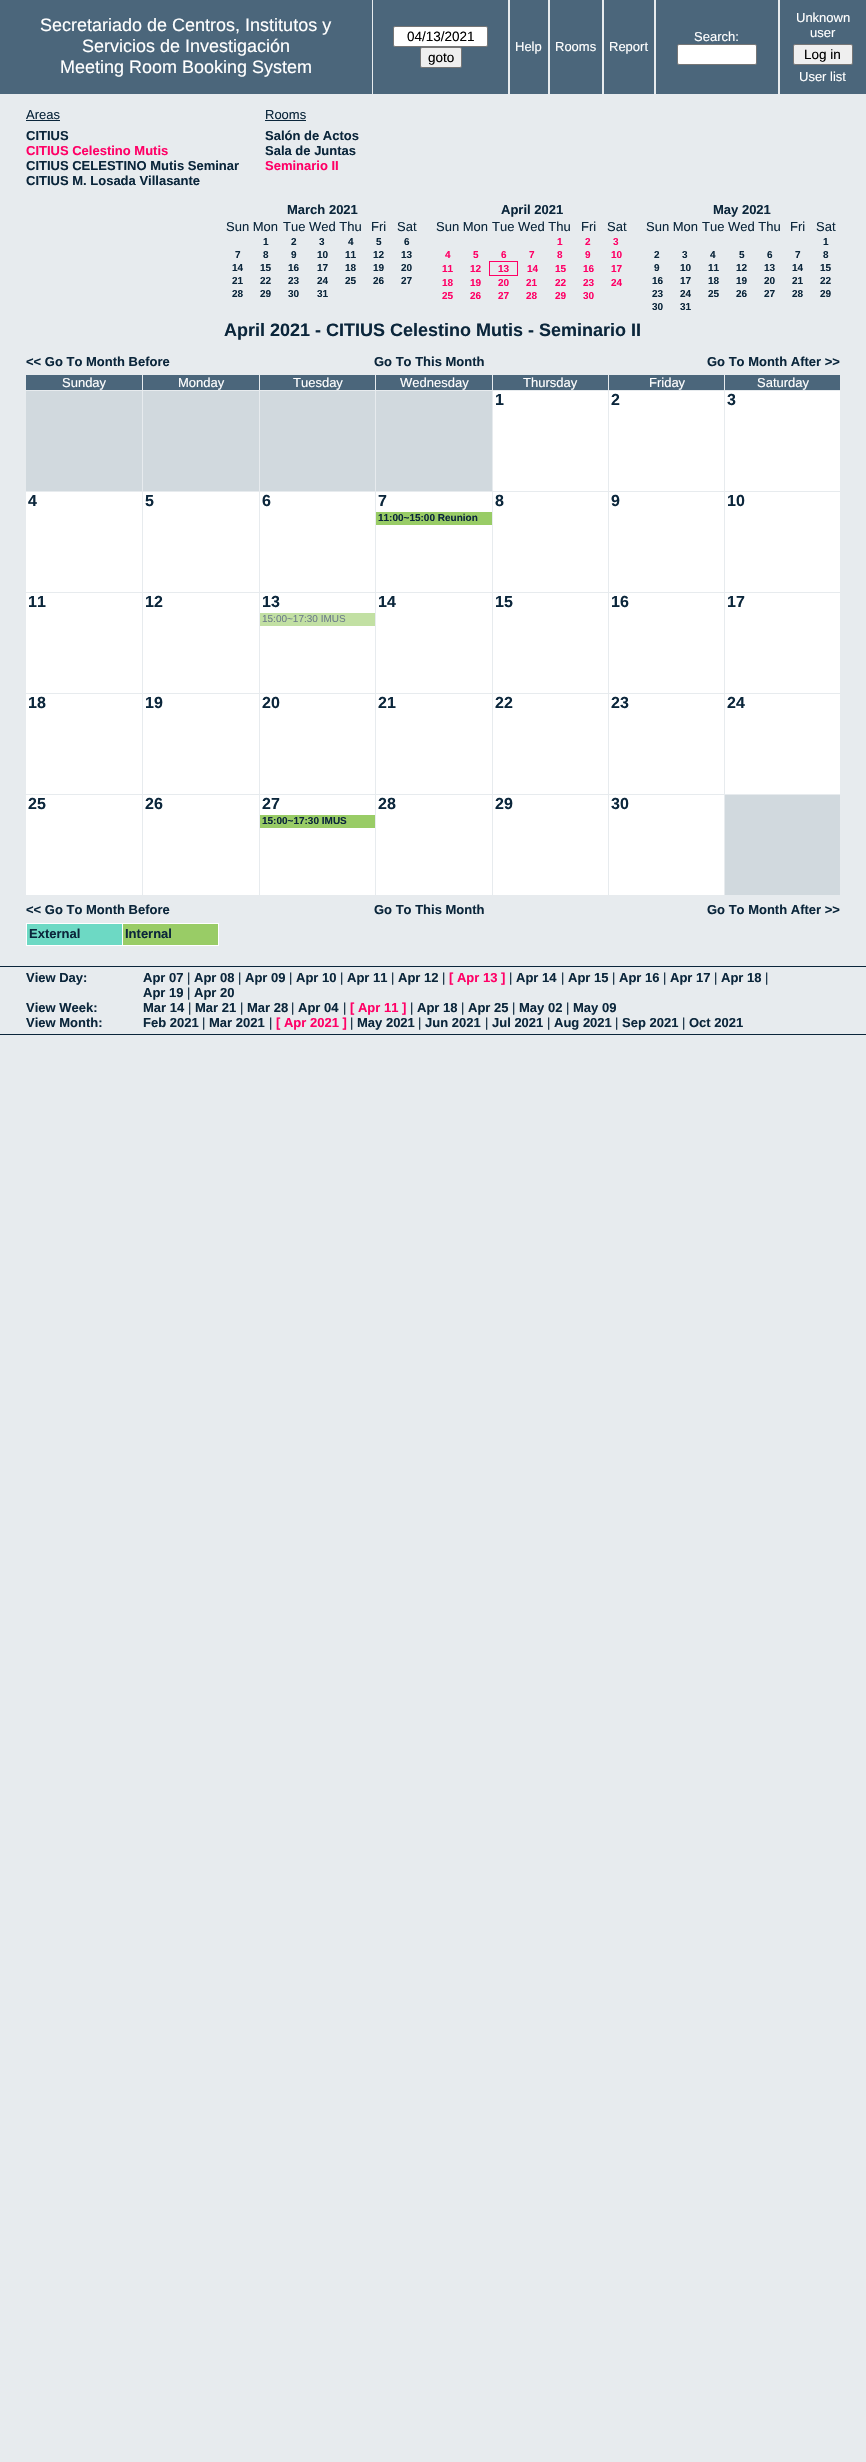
void draw(SkCanvas* c) {
SkPaint p;
p.setAntiAlias(true);
auto F=[&](const char* family, int weight, float size, bool italic = false){SkFontStyle style(weight, SkFontStyle::kNormal_Width,italic ? SkFontStyle::kItalic_Slant : SkFontStyle::kUpright_Slant);SkFont result(fontMgr->matchFamilyStyle(family, style), size);result.setSubpixel(true);return result;};
auto T=[&](const char* s, float x, float y, const SkFont& font){c->drawString(s, x, y, font, p);};
auto R=[&](float x, float y, float w, float h){c->drawRect(SkRect::MakeXYWH(x, y, w, h), p);};
c->clear(0xffe7ebee);
p.setColor(0xff4b667b);
R(0,0,372,94);
auto f1 = F("Liberation Sans",400,18);
p.setColor(0xffffffff);
T("Secretariado de Centros, Institutos y",40,31,f1);
T("Servicios de Investigación",82,52,f1);
T("Meeting Room Booking System",60,73,f1);
p.setColor(0xff4b667b);
R(373,0,135,94);
p.setColor(0xffffffff);
c->drawRoundRect(SkRect::MakeXYWH(393.5,26.5,94,20),1.5,1.5,p);
p.setStroke(true);
p.setStrokeWidth(1);
p.setColor(0xff767676);
c->drawRoundRect(SkRect::MakeXYWH(393.5,26.5,94,20),1.5,1.5,p);
auto f2 = F("Liberation Sans",400,13.5);
p.setStroke(false);
p.setColor(0xff000000);
T("04/13/2021",407,41,f2);
p.setColor(0xffefefef);
c->drawRoundRect(SkRect::MakeXYWH(420.5,47.5,41,20),1.5,1.5,p);
p.setStroke(true);
p.setColor(0xff767676);
c->drawRoundRect(SkRect::MakeXYWH(420.5,47.5,41,20),1.5,1.5,p);
p.setStroke(false);
p.setColor(0xff000000);
T("goto",428,62,f2);
p.setColor(0xff4b667b);
R(656,0,122,94);
auto f3 = F("Liberation Sans",400,13);
p.setColor(0xffffffff);
T("Search:",694,41,f3);
c->drawRoundRect(SkRect::MakeXYWH(677.5,44.5,79,20),1.5,1.5,p);
p.setStroke(true);
p.setColor(0xff767676);
c->drawRoundRect(SkRect::MakeXYWH(677.5,44.5,79,20),1.5,1.5,p);
p.setStroke(false);
p.setColor(0xff4b667b);
R(780,0,86,94);
p.setColor(0xffffffff);
T("Unknown",796,22,f3);
T("user",810,37,f3);
p.setColor(0xffefefef);
c->drawRoundRect(SkRect::MakeXYWH(793.5,44.5,59,20),1.5,1.5,p);
p.setStroke(true);
p.setColor(0xff767676);
c->drawRoundRect(SkRect::MakeXYWH(793.5,44.5,59,20),1.5,1.5,p);
p.setStroke(false);
p.setColor(0xff000000);
T("Log in",804,59,f2);
p.setColor(0xffffffff);
T("User list",799,81,f3);
p.setColor(0xff4b667b);
R(510,0,38,94);
p.setColor(0xffffffff);
T("Help",515,51,f3);
p.setColor(0xff4b667b);
R(550,0,52,94);
p.setColor(0xffffffff);
T("Rooms",555,51,f3);
p.setColor(0xff4b667b);
R(604,0,50,94);
p.setColor(0xffffffff);
T("Report",609,51,f3);
p.setColor(0xff0b263b);
T("Areas",26,119,f3);
R(26,120,34,1);
auto f4 = F("Liberation Sans",700,13);
T("CITIUS",26,140,f4);
p.setColor(0xffff0066);
T("CITIUS Celestino Mutis",26,155,f4);
p.setColor(0xff0b263b);
T("CITIUS CELESTINO Mutis Seminar",26,170,f4);
T("CITIUS M. Losada Villasante",26,185,f4);
T("Rooms",265,119,f3);
R(265,120,41,1);
T("Salón de Actos",265,140,f4);
T("Sala de Juntas",265,155,f4);
p.setColor(0xffff0066);
T("Seminario II",265,170,f4);
p.setColor(0xff0b263b);
T("March 2021",287,214,f4);
T("Sun Mon",226,231,f3);
T("Tue Wed Thu",283,231,f3);
T("Fri",371,231,f3);
T("Sat",397,231,f3);
auto f5 = F("Liberation Sans",700,10);
T("1",263,245,f5);
T("2",291,245,f5);
T("3",319,245,f5);
T("4",348,245,f5);
T("5",376,245,f5);
T("6",404,245,f5);
T("7",235,258,f5);
T("8",263,258,f5);
T("9",291,258,f5);
T("10",317,258,f5);
T("11",345,258,f5);
T("12",373,258,f5);
T("13",401,258,f5);
T("14",232,271,f5);
T("15",260,271,f5);
T("16",288,271,f5);
T("17",317,271,f5);
T("18",345,271,f5);
T("19",373,271,f5);
T("20",401,271,f5);
T("21",232,284,f5);
T("22",260,284,f5);
T("23",288,284,f5);
T("24",317,284,f5);
T("25",345,284,f5);
T("26",373,284,f5);
T("27",401,284,f5);
T("28",232,297,f5);
T("29",260,297,f5);
T("30",288,297,f5);
T("31",317,297,f5);
T("April 2021",501,214,f4);
T("Sun Mon",436,231,f3);
T("Tue Wed Thu",492,231,f3);
T("Fri",581,231,f3);
T("Sat",607,231,f3);
p.setColor(0xffff0066);
T("1",557,245,f5);
T("2",585,245,f5);
T("3",613,245,f5);
T("4",445,258,f5);
T("5",473,258,f5);
T("6",501,258,f5);
T("7",529,258,f5);
T("8",557,258,f5);
T("9",585,258,f5);
T("10",611,258,f5);
T("11",442,272,f5);
T("12",470,272,f5);
R(489,261,29,1);
R(517,261,1,15);
R(489,275,29,1);
R(489,261,1,15);
T("13",498,272,f5);
T("14",527,272,f5);
T("15",555,272,f5);
T("16",583,272,f5);
T("17",611,272,f5);
T("18",442,286,f5);
T("19",470,286,f5);
T("20",498,286,f5);
T("21",526,286,f5);
T("22",555,286,f5);
T("23",583,286,f5);
T("24",611,286,f5);
T("25",442,299,f5);
T("26",470,299,f5);
T("27",498,299,f5);
T("28",526,299,f5);
T("29",555,299,f5);
T("30",583,299,f5);
p.setColor(0xff0b263b);
T("May 2021",713,214,f4);
T("Sun Mon",646,231,f3);
T("Tue Wed Thu",702,231,f3);
T("Fri",790,231,f3);
T("Sat",816,231,f3);
T("1",823,245,f5);
T("2",654,258,f5);
T("3",682,258,f5);
T("4",710,258,f5);
T("5",739,258,f5);
T("6",767,258,f5);
T("7",795,258,f5);
T("8",823,258,f5);
T("9",654,271,f5);
T("10",680,271,f5);
T("11",708,271,f5);
T("12",736,271,f5);
T("13",764,271,f5);
T("14",792,271,f5);
T("15",820,271,f5);
T("16",652,284,f5);
T("17",680,284,f5);
T("18",708,284,f5);
T("19",736,284,f5);
T("20",764,284,f5);
T("21",792,284,f5);
T("22",820,284,f5);
T("23",652,297,f5);
T("24",680,297,f5);
T("25",708,297,f5);
T("26",736,297,f5);
T("27",764,297,f5);
T("28",792,297,f5);
T("29",820,297,f5);
T("30",652,310,f5);
T("31",680,310,f5);
auto f6 = F("Liberation Sans",700,18);
T("April 2021 - CITIUS Celestino Mutis - Seminario II",224,336,f6);
T("<< Go To Month Before",26,366,f4);
T("Go To This Month",374,366,f4);
T("Go To Month After >>",707,366,f4);
p.setColor(0xff4b667b);
R(26,375,116,15);
p.setColor(0xffffffff);
T("Sunday",62,387,f3);
p.setColor(0xff4b667b);
R(143,375,116,15);
p.setColor(0xffffffff);
T("Monday",178,387,f3);
p.setColor(0xff4b667b);
R(260,375,115,15);
p.setColor(0xffffffff);
T("Tuesday",293,387,f3);
p.setColor(0xff4b667b);
R(376,375,116,15);
p.setColor(0xffffffff);
T("Wednesday",400,387,f3);
p.setColor(0xff4b667b);
R(493,375,115,15);
p.setColor(0xffffffff);
T("Thursday",523,387,f3);
p.setColor(0xff4b667b);
R(609,375,115,15);
p.setColor(0xffffffff);
T("Friday",649,387,f3);
p.setColor(0xff4b667b);
R(725,375,115,15);
p.setColor(0xffffffff);
T("Saturday",757,387,f3);
p.setColor(0xffd1d9de);
R(26,391,116,100);
R(143,391,116,100);
R(260,391,115,100);
R(376,391,116,100);
p.setColor(0xffffffff);
R(493,391,115,100);
auto f7 = F("Liberation Sans",700,16);
p.setColor(0xff0b263b);
T("1",495,405,f7);
p.setColor(0xffffffff);
R(609,391,115,100);
p.setColor(0xff0b263b);
T("2",611,405,f7);
p.setColor(0xffffffff);
R(725,391,115,100);
p.setColor(0xff0b263b);
T("3",727,405,f7);
p.setColor(0xffffffff);
R(26,492,116,100);
p.setColor(0xff0b263b);
T("4",28,506,f7);
p.setColor(0xffffffff);
R(143,492,116,100);
p.setColor(0xff0b263b);
T("5",145,506,f7);
p.setColor(0xffffffff);
R(260,492,115,100);
p.setColor(0xff0b263b);
T("6",262,506,f7);
p.setColor(0xffffffff);
R(376,492,116,100);
p.setColor(0xff0b263b);
T("7",378,506,f7);
p.setColor(0xff99cc66);
R(376,512,116,13);
p.setColor(0xff0b263b);
T("11:00~15:00 Reunion",378,521,f5);
p.setColor(0xffffffff);
R(493,492,115,100);
p.setColor(0xff0b263b);
T("8",495,506,f7);
p.setColor(0xffffffff);
R(609,492,115,100);
p.setColor(0xff0b263b);
T("9",611,506,f7);
p.setColor(0xffffffff);
R(725,492,115,100);
p.setColor(0xff0b263b);
T("10",727,506,f7);
p.setColor(0xffffffff);
R(26,593,116,100);
p.setColor(0xff0b263b);
T("11",28,607,f7);
p.setColor(0xffffffff);
R(143,593,116,100);
p.setColor(0xff0b263b);
T("12",145,607,f7);
p.setColor(0xffffffff);
R(260,593,115,100);
p.setColor(0xff0b263b);
T("13",262,607,f7);
p.setColor(0xffc2e0a3);
R(260,613,115,13);
auto f8 = F("Liberation Sans",400,10);
p.setColor(0xff6d7d89);
T("15:00~17:30 IMUS",262,622,f8);
p.setColor(0xffffffff);
R(376,593,116,100);
p.setColor(0xff0b263b);
T("14",378,607,f7);
p.setColor(0xffffffff);
R(493,593,115,100);
p.setColor(0xff0b263b);
T("15",495,607,f7);
p.setColor(0xffffffff);
R(609,593,115,100);
p.setColor(0xff0b263b);
T("16",611,607,f7);
p.setColor(0xffffffff);
R(725,593,115,100);
p.setColor(0xff0b263b);
T("17",727,607,f7);
p.setColor(0xffffffff);
R(26,694,116,100);
p.setColor(0xff0b263b);
T("18",28,708,f7);
p.setColor(0xffffffff);
R(143,694,116,100);
p.setColor(0xff0b263b);
T("19",145,708,f7);
p.setColor(0xffffffff);
R(260,694,115,100);
p.setColor(0xff0b263b);
T("20",262,708,f7);
p.setColor(0xffffffff);
R(376,694,116,100);
p.setColor(0xff0b263b);
T("21",378,708,f7);
p.setColor(0xffffffff);
R(493,694,115,100);
p.setColor(0xff0b263b);
T("22",495,708,f7);
p.setColor(0xffffffff);
R(609,694,115,100);
p.setColor(0xff0b263b);
T("23",611,708,f7);
p.setColor(0xffffffff);
R(725,694,115,100);
p.setColor(0xff0b263b);
T("24",727,708,f7);
p.setColor(0xffffffff);
R(26,795,116,100);
p.setColor(0xff0b263b);
T("25",28,809,f7);
p.setColor(0xffffffff);
R(143,795,116,100);
p.setColor(0xff0b263b);
T("26",145,809,f7);
p.setColor(0xffffffff);
R(260,795,115,100);
p.setColor(0xff0b263b);
T("27",262,809,f7);
p.setColor(0xff99cc66);
R(260,815,115,13);
p.setColor(0xff0b263b);
T("15:00~17:30 IMUS",262,824,f5);
p.setColor(0xffffffff);
R(376,795,116,100);
p.setColor(0xff0b263b);
T("28",378,809,f7);
p.setColor(0xffffffff);
R(493,795,115,100);
p.setColor(0xff0b263b);
T("29",495,809,f7);
p.setColor(0xffffffff);
R(609,795,115,100);
p.setColor(0xff0b263b);
T("30",611,809,f7);
p.setColor(0xffd1d9de);
R(725,795,115,100);
p.setColor(0xff0b263b);
T("<< Go To Month Before",26,914,f4);
T("Go To This Month",374,914,f4);
T("Go To Month After >>",707,914,f4);
p.setColor(0xff6dd9c4);
R(27,924,95,21);
p.setColor(0xffffffff);
R(122,923,97,1);
R(218,923,1,23);
R(122,945,97,1);
R(122,923,1,23);
R(26,923,97,1);
R(26,945,97,1);
R(26,923,1,23);
p.setColor(0xff0b263b);
T("External",29,938,f4);
p.setColor(0xff99cc66);
R(123,924,95,21);
p.setColor(0xff0b263b);
T("Internal",125,938,f4);
R(0,966,866,1);
R(0,1034,866,1);
T("View Day:",26,982,f4);
T("Apr 07",143,982,f4);
T("|",187,982,f3);
T("Apr 08",194,982,f4);
T("|",238,982,f3);
T("Apr 09",245,982,f4);
T("|",289,982,f3);
T("Apr 10",296,982,f4);
T("|",340,982,f3);
T("Apr 11",347,982,f4);
T("|",391,982,f3);
T("Apr 12",398,982,f4);
T("|",442,982,f3);
p.setColor(0xffff0066);
T("[ Apr 13 ]",449,982,f4);
p.setColor(0xff0b263b);
T("|",509,982,f3);
T("Apr 14",516,982,f4);
T("|",561,982,f3);
T("Apr 15",568,982,f4);
T("|",612,982,f3);
T("Apr 16",619,982,f4);
T("|",663,982,f3);
T("Apr 17",670,982,f4);
T("|",714,982,f3);
T("Apr 18",721,982,f4);
T("|",765,982,f3);
T("Apr 19",143,997,f4);
T("|",187,997,f3);
T("Apr 20",194,997,f4);
T("View Week:",26,1012,f4);
T("Mar 14",143,1012,f4);
T("|",188,1012,f3);
T("Mar 21",195,1012,f4);
T("|",240,1012,f3);
T("Mar 28",247,1012,f4);
T("|",291,1012,f3);
T("Apr 04",298,1012,f4);
T("|",343,1012,f3);
p.setColor(0xffff0066);
T("[ Apr 11 ]",350,1012,f4);
p.setColor(0xff0b263b);
T("|",410,1012,f3);
T("Apr 18",417,1012,f4);
T("|",461,1012,f3);
T("Apr 25",468,1012,f4);
T("|",512,1012,f3);
T("May 02",519,1012,f4);
T("|",566,1012,f3);
T("May 09",573,1012,f4);
T("View Month:",26,1027,f4);
T("Feb 2021",143,1027,f4);
T("|",202,1027,f3);
T("Mar 2021",209,1027,f4);
T("|",269,1027,f3);
p.setColor(0xffff0066);
T("[ Apr 2021 ]",276,1027,f4);
p.setColor(0xff0b263b);
T("|",350,1027,f3);
T("May 2021",357,1027,f4);
T("|",418,1027,f3);
T("Jun 2021",425,1027,f4);
T("|",485,1027,f3);
T("Jul 2021",492,1027,f4);
T("|",547,1027,f3);
T("Aug 2021",554,1027,f4);
T("|",615,1027,f3);
T("Sep 2021",622,1027,f4);
T("|",682,1027,f3);
T("Oct 2021",689,1027,f4);
}
